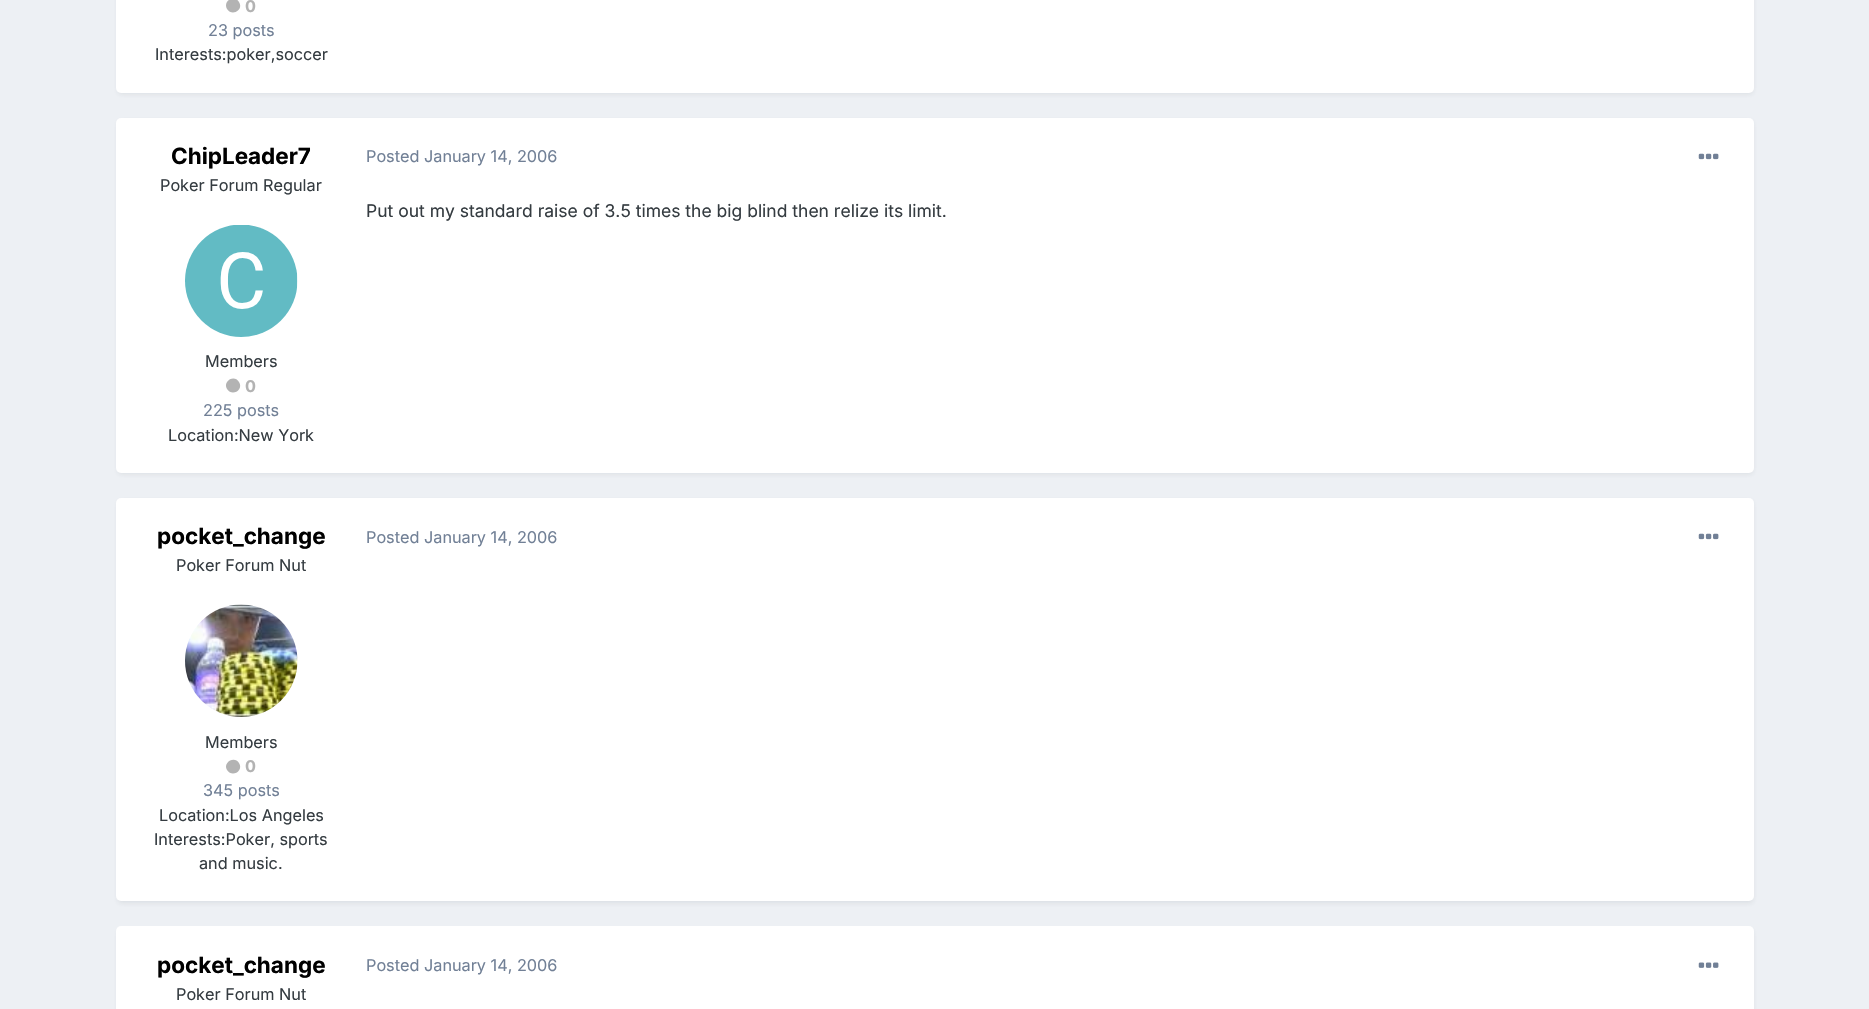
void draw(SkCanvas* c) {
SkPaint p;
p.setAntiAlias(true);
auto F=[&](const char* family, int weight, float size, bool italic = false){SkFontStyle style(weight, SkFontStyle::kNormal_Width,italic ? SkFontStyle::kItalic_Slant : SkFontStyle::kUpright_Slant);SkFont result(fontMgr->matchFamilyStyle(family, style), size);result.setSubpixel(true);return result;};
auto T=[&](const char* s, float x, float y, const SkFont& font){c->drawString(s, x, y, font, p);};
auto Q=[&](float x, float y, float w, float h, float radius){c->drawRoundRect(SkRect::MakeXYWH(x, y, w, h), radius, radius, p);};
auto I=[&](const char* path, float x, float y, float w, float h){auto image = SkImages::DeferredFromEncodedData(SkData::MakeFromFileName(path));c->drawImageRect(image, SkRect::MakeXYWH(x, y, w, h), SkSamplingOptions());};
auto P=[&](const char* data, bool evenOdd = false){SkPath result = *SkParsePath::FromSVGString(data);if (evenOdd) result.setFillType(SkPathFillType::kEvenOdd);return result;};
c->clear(0xffedf0f4);
p.setColor(0x1a2d3748);
p.setMaskFilter(SkMaskFilter::MakeBlur(kNormal_SkBlurStyle, 2.5));
c->drawRoundRect(SkRect::MakeXYWH(118,-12,1635,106),4,4,p);
p.setMaskFilter(nullptr);
p.setColor(0xffffffff);
Q(116,-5,1638,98,5);
p.setColor(0xffb3b3b3);
c->drawPath(P("M239 2c5 8-7 15-12 7c-4.5-8 7.5-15 12-7z"),p);
auto f1 = F("Inter",700,16.25);
T("0",245,12,f1);
auto f2 = F("Inter",400,16.25);
p.setColor(0xff718096);
T("23 posts",208,36,f2);
p.setColor(0xff353c41);
T("Interests:poker,soccer",155,60,f2);
p.setColor(0x1a2d3748);
p.setMaskFilter(SkMaskFilter::MakeBlur(kNormal_SkBlurStyle, 2.5));
c->drawRoundRect(SkRect::MakeXYWH(118,121,1635,353),4,4,p);
p.setMaskFilter(nullptr);
p.setColor(0xffffffff);
Q(116,118,1638,355,5);
auto f3 = F("Inter",700,22.5);
p.setColor(0xff000000);
T("ChipLeader7",171,164,f3);
p.setColor(0xff353c41);
T("Poker Forum Regular",160,191,f2);
I("1.png",185,225,113,112);
T("Members",205,367,f2);
p.setColor(0xffb3b3b3);
c->drawPath(P("M239 382c5 8-7 15-12 7c-4.5-8 7.5-15 12-7z"),p);
T("0",245,392,f1);
p.setColor(0xff718096);
T("225 posts",203,416,f2);
p.setColor(0xff353c41);
T("Location:New York",168,441,f2);
p.setColor(0xff718096);
T("Posted January 14, 2006",366,162,f2);
I("2.png",1698,153,21,7);
auto f4 = F("Inter",400,17.5);
p.setColor(0xff353c41);
T("Put out my standard raise of 3.5 times the big blind then relize its limit.",366,217,f4);
p.setColor(0x1a2d3748);
p.setMaskFilter(SkMaskFilter::MakeBlur(kNormal_SkBlurStyle, 2.5));
c->drawRoundRect(SkRect::MakeXYWH(118,501,1635,402),4,4,p);
p.setMaskFilter(nullptr);
p.setColor(0xffffffff);
Q(116,498,1638,403,5);
p.setColor(0xff000000);
T("pocket_change",157,544,f3);
p.setColor(0xff353c41);
T("Poker Forum Nut",176,571,f2);
I("3.png",185,604,113,113);
T("Members",205,748,f2);
p.setColor(0xffb3b3b3);
c->drawPath(P("M239 763c5 8-7 15-12 7c-4.5-7.5 7.5-14.5 12-7z"),p);
T("0",245,772,f1);
p.setColor(0xff718096);
T("345 posts",203,796,f2);
p.setColor(0xff353c41);
T("Location:Los Angeles",159,821,f2);
T("Interests:Poker, sports",154,845,f2);
T("and music.",199,869,f2);
p.setColor(0xff718096);
T("Posted January 14, 2006",366,543,f2);
I("2.png",1698,533,21,7);
p.setColor(0x1a2d3748);
p.setMaskFilter(SkMaskFilter::MakeBlur(kNormal_SkBlurStyle, 2.5));
c->drawRoundRect(SkRect::MakeXYWH(118,930,1635,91),4,4,p);
p.setMaskFilter(nullptr);
p.setColor(0xffffffff);
Q(116,926,1638,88,5);
p.setColor(0xff000000);
T("pocket_change",157,973,f3);
p.setColor(0xff353c41);
T("Poker Forum Nut",176,1000,f2);
p.setColor(0xff718096);
T("Posted January 14, 2006",366,971,f2);
I("4.png",1698,962,21,6);
}
